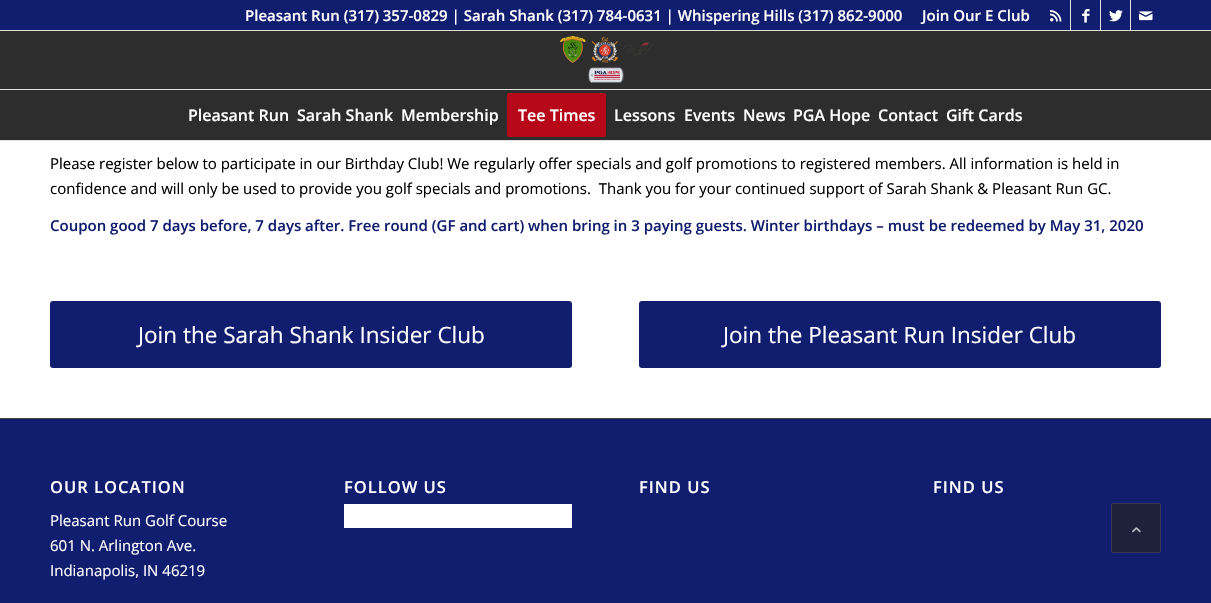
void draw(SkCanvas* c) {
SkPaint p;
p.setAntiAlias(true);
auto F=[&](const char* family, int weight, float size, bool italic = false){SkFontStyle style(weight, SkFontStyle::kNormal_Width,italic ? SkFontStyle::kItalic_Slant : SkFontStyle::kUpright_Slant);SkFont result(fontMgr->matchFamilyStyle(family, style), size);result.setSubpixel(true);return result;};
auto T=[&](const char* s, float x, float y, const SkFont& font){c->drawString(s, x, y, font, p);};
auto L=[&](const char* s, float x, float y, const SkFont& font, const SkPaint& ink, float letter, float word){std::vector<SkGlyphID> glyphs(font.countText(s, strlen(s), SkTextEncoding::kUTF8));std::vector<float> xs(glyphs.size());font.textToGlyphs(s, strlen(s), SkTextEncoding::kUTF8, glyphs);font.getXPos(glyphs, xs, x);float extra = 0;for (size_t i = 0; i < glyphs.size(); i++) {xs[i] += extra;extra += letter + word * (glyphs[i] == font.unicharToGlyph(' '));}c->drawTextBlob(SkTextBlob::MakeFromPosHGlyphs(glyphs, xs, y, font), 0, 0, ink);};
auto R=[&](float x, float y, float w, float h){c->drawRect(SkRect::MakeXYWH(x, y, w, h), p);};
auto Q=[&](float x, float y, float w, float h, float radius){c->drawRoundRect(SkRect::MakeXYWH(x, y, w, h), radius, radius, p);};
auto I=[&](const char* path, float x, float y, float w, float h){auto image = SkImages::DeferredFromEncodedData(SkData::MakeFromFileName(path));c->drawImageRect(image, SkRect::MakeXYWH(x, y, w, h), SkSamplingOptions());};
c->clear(0xffffffff);
p.setColor(0xff111e6f);
R(0,0,1211,30);
p.setColor(0xffe1e1e1);
R(0,30,1211,1);
auto f1 = F("Open Sans",600,15);
p.setColor(0xffffffff);
T("Pleasant Run (317) 357-0829 | Sarah Shank (317) 784-0631 | Whispering Hills (317) 862-9000",245,21,f1);
T("Join Our E Club",922,21,f1);
p.setColor(0xffe1e1e1);
R(1070,0,1,30);
I("1.png",1050,10,12,12);
R(1100,0,1,30);
I("2.png",1082,9,8,14);
R(1130,0,1,30);
I("3.png",1109,10,14,12);
I("4.png",1139,11,14,10);
R(0,140,1211,1);
p.setColor(0xff2d2d2d);
R(0,31,1211,109);
I("5.png",560,35,93,48);
p.setColor(0xffe1e1e1);
R(0,89,1211,1);
auto f2 = F("Open Sans",600,16);
p.setColor(0xffffffff);
T("Pleasant Run",188,121,f2);
T("Sarah Shank",297,121,f2);
T("Membership",401,121,f2);
p.setColor(0xffb60819);
c->drawRoundRect(SkRect::MakeXYWH(508,94,97,42),1,1,p);
p.setStroke(true);
p.setStrokeWidth(2);
c->drawRoundRect(SkRect::MakeXYWH(508,94,97,42),1,1,p);
p.setStroke(false);
p.setColor(0xffffffff);
T("Tee Times",518,121,f2);
T("Lessons",614,121,f2);
T("Events",684,121,f2);
T("News",743,121,f2);
T("PGA Hope",793,121,f2);
T("Contact",878,121,f2);
T("Gift Cards",946,121,f2);
auto f3 = F("Open Sans",400,15);
p.setColor(0xff000000);
T("Please register below to participate in our Birthday Club! We regularly offer specials and golf promotions to registered members. All information is held in",50,169,f3);
T("confidence and will only be used to provide you golf specials and promotions.  Thank you for your continued support of Sarah Shank & Pleasant Run GC.",50,194,f3);
p.setColor(0xff111e6f);
T("Coupon good 7 days before, 7 days after. Free round (GF and cart) when bring in 3 paying guests. Winter birthdays – must be redeemed by May 31, 2020",50,231,f1);
Q(50,301,522,67,3);
auto f4 = F("Open Sans",400,22.5);
p.setColor(0xffffffff);
T("Join the Sarah Shank Insider Club",138,343,f4);
p.setColor(0xff111e6f);
Q(639,301,522,67,3);
p.setColor(0xffffffff);
T("Join the Pleasant Run Insider Club",723,343,f4);
p.setColor(0xff111e6f);
R(0,419,1211,184);
p.setColor(0xff444444);
R(0,418,1211,1);
auto f5 = F("Open Sans",600,16.5);
p.setColor(0xffffffff);
L("OUR LOCATION",50,493,f5,p,1,0);
T("Pleasant Run Golf Course",50,526,f3);
T("601 N. Arlington Ave.",50,551,f3);
T("Indianapolis, IN 46219",50,576,f3);
L("FOLLOW US",344,493,f5,p,1,0);
R(344,504,228,24);
L("FIND US",639,493,f5,p,1,0);
L("FIND US",933,493,f5,p,1,0);
p.setColor(0xff1d2139);
c->drawRoundRect(SkRect::MakeXYWH(1111.5,503.5,49,49),1.5,1.5,p);
p.setStroke(true);
p.setStrokeWidth(1);
p.setColor(0xff353951);
c->drawRoundRect(SkRect::MakeXYWH(1111.5,503.5,49,49),1.5,1.5,p);
I("6.png",1132,527,9,6);
}
